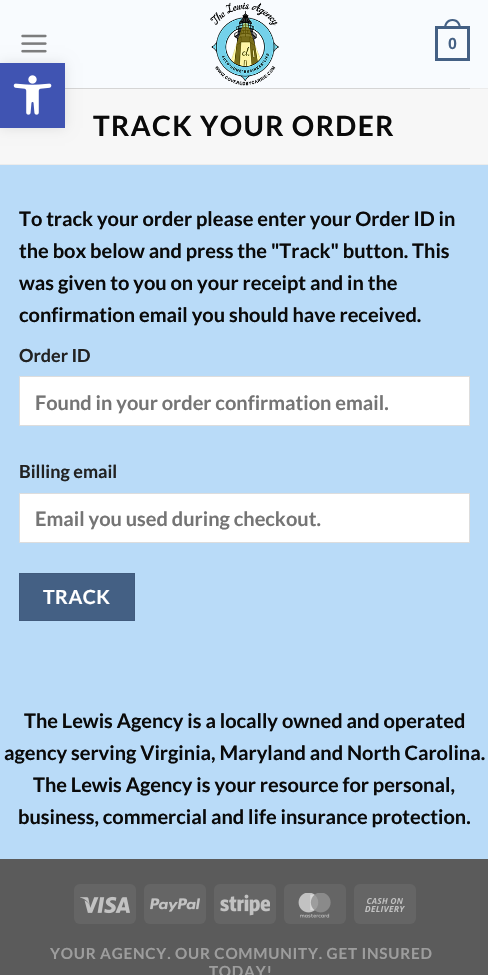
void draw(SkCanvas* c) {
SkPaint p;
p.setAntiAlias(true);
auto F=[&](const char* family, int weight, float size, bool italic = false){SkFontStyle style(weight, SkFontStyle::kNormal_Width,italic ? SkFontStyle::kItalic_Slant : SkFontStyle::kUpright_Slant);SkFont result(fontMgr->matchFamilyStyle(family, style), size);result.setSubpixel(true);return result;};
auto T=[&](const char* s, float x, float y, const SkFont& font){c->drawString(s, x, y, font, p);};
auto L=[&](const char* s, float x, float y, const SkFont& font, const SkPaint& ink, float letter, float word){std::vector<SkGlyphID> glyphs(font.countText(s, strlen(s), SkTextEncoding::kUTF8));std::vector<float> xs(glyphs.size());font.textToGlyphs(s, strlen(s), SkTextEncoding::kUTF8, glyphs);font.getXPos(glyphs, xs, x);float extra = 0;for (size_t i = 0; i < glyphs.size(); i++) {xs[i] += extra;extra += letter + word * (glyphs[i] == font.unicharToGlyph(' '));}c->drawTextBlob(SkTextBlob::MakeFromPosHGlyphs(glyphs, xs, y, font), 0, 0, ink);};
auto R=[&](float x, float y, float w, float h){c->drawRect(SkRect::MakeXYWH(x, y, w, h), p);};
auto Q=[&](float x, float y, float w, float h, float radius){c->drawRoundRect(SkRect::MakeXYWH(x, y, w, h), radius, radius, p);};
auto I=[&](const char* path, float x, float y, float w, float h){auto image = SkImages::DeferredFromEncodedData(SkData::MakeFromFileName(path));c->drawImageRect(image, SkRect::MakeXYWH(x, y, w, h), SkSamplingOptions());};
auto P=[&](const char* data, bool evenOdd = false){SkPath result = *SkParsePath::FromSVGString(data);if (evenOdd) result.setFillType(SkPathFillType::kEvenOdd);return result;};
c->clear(0xffb9dbf8);
p.setColor(0xfff8fbfe);
R(0,0,488,88);
I("1.png",21,34,26,19);
I("2.png",210,2,69,84);
p.setStroke(true);
p.setStrokeWidth(3);
p.setColor(0xff446084);
c->drawRect(SkRect::MakeXYWH(436.5,27.5,32,32),p);
p.setStroke(false);
c->drawPath(P("M452.5 19c6 0 8.5 4.5 8.5 10h-17c0-5.5 2.5-10 8.5-10zm0 2c4.5 0 6.5 4 6.5 8h-13c0-4 2-8 6.5-8z",true),p);
auto f1 = F("Liberation Sans",700,16);
T("0",448,49,f1);
p.setColor(0xffd5d5d5);
R(65,88,405,1);
p.setColor(0xfff7f7f7);
R(0,89,488,75);
p.setColor(0xffececec);
R(470,88,18,1);
R(0,164,488,1);
auto f2 = F("Lato",700,28);
p.setColor(0xff0a0a0a);
L("TRACK YOUR ORDER",93,136,f2,p,1.4,0);
auto f3 = F("Lato",700,20);
T("To track your order please enter your Order ID in",19,226,f3);
T("the box below and press the \"Track\" button. This",19,258,f3);
T("was given to you on your receipt and in the",19,290,f3);
T("confirmation email you should have received.",19,322,f3);
auto f4 = F("Lato",700,18);
p.setColor(0xff222222);
T("Order ID",19,362,f4);
p.setColor(0xffffffff);
c->drawRect(SkRect::MakeXYWH(19.5,376.5,450,49),p);
p.setStroke(true);
p.setStrokeWidth(1);
p.setColor(0xffdddddd);
c->drawRect(SkRect::MakeXYWH(19.5,376.5,450,49),p);
p.setStroke(false);
p.setColor(0xff757575);
T("Found in your order confirmation email.",35,410,f3);
p.setColor(0xff222222);
T("Billing email",19,478,f4);
p.setColor(0xffffffff);
c->drawRect(SkRect::MakeXYWH(19.5,493.5,450,49),p);
p.setStroke(true);
p.setColor(0xffdddddd);
c->drawRect(SkRect::MakeXYWH(19.5,493.5,450,49),p);
p.setStroke(false);
p.setColor(0xff757575);
T("Email you used during checkout.",35,526,f3);
p.setColor(0xff446084);
c->drawRect(SkRect::MakeXYWH(19.5,573.5,115,47),p);
p.setStroke(true);
p.setColor(0xff415b7d);
c->drawRect(SkRect::MakeXYWH(19.5,573.5,115,47),p);
auto f5 = F("Lato",700,19.5);
p.setStroke(false);
p.setColor(0xffffffff);
L("TRACK",43,604,f5,p,.5,0);
p.setColor(0xff0a0a0a);
T("The Lewis Agency is a locally owned and operated",24,728,f3);
T("agency serving Virginia, Maryland and North Carolina.",4,760,f3);
T("The Lewis Agency is your resource for personal,",33,792,f3);
T("business, commercial and life insurance protection.",18,824,f3);
p.setColor(0xff5b5b5b);
R(0,859,488,116);
p.setColor(0xff656565);
Q(74,884,62,40,6);
I("3.png",80,896,50,18);
Q(144,884,62,40,6);
I("4.png",150,898,50,14);
Q(214,884,62,40,6);
I("5.png",220,894,50,22);
Q(284,884,62,40,6);
I("6.png",298,893,33,25);
Q(354,884,62,40,6);
I("7.png",365,898,40,14);
auto f6 = F("Lato",700,15.3);
p.setColor(0xff9d9d9d);
L("YOUR AGENCY. OUR COMMUNITY. GET INSURED",50,959,f6,p,.75,0);
L("TODAY!",209,977,f6,p,.75,0);
p.setColor(0x1a000000);
p.setMaskFilter(SkMaskFilter::MakeBlur(kNormal_SkBlurStyle, 6));
c->drawRect(SkRect::MakeXYWH(0,63,65,65),p);
p.setMaskFilter(nullptr);
p.setColor(0xff4054b2);
R(0,63,65,65);
I("8.png",13,75,39,40);
}
